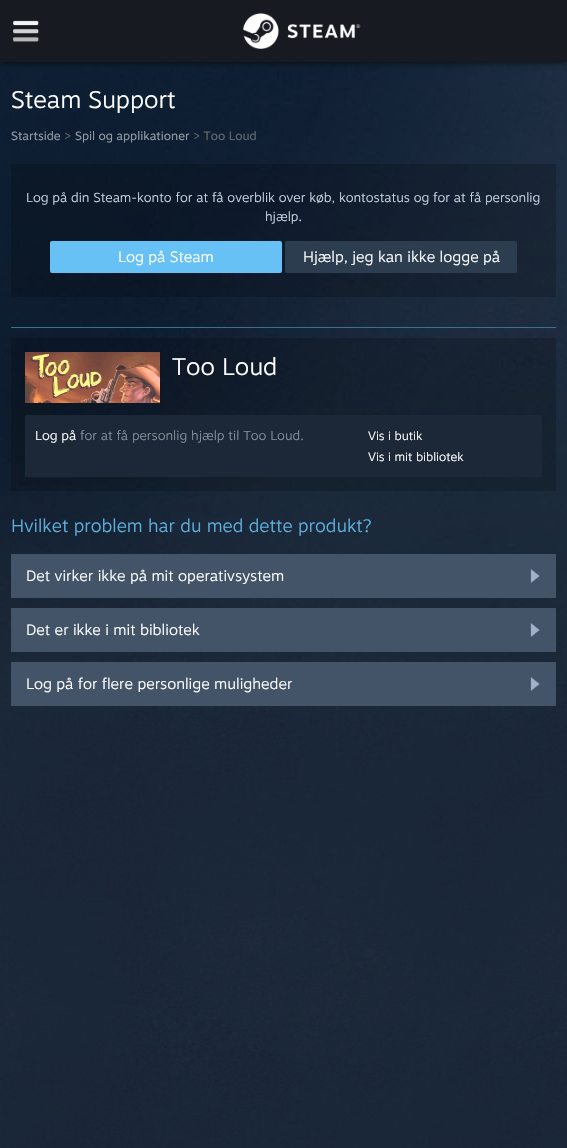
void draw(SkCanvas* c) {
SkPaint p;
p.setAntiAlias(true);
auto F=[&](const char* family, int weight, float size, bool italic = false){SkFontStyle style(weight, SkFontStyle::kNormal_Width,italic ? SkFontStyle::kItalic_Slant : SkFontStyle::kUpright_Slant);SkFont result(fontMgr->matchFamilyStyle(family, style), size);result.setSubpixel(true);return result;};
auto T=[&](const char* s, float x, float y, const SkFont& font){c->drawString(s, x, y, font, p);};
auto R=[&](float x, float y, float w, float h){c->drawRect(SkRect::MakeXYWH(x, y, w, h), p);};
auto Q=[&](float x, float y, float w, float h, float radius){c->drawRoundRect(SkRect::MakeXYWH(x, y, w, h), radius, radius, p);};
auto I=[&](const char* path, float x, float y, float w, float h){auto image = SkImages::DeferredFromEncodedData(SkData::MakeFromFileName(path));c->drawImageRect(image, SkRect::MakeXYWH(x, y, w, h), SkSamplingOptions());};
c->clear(0xffffffff);
I("1.png",0,62,567,1086);
p.setColor(0xbf000000);
p.setMaskFilter(SkMaskFilter::MakeBlur(kNormal_SkBlurStyle, 3.5));
c->drawRect(SkRect::MakeXYWH(0,0,567,62),p);
p.setMaskFilter(nullptr);
p.setColor(0xff171a21);
R(0,0,567,62);
I("2.png",13,20,26,22);
I("3.png",243,13,118,36);
auto f1 = F("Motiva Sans",300,24);
p.setColor(0xffffffff);
T("Steam Support",11,108,f1);
auto f2 = F("Motiva Sans",400,12);
p.setColor(0xff8f98a0);
T("Startside",11,140,f2);
p.setColor(0xff61686d);
T(">",64,140,f2);
p.setColor(0xff8f98a0);
T("Spil og applikationer",75,140,f2);
p.setColor(0xff61686d);
T("> Too Loud",193,140,f2);
p.setColor(0x33000000);
R(11,164,545,133);
auto f3 = F("Motiva Sans",300,13);
p.setColor(0xffc6d4df);
T("Log på din Steam-konto for at få overblik over køb, kontostatus og for at få personlig",26,202,f3);
T("hjælp.",265,221,f3);
p.setColor(0xff67c1f5);
Q(50,241,232,32,2);
auto f4 = F("Motiva Sans",300,15);
p.setColor(0xffffffff);
T("Log på Steam",118,262,f4);
p.setColor(0xff2d3d50);
Q(285,241,232,32,2);
p.setColor(0xffffffff);
T("Hjælp, jeg kan ikke logge på",303,262,f4);
p.setColor(0xff3b718d);
R(11,327,545,1);
p.setColor(0x33000000);
R(11,338,545,153);
I("4.png",25,352,135,51);
p.setColor(0xffffffff);
T("Too Loud",172,375,f1);
p.setColor(0xff1c2837);
R(25,415,517,62);
p.setColor(0xffffffff);
T("Log på",35,440,f3);
p.setColor(0xff82909a);
T("for at få personlig hjælp til Too Loud.",80,440,f3);
auto f5 = F("Motiva Sans",300,12);
p.setColor(0xffffffff);
T("Vis i butik",368,440,f5);
T("Vis i mit bibliotek",368,461,f5);
auto f6 = F("Motiva Sans",300,18);
p.setColor(0xff5eafde);
T("Hvilket problem har du med dette produkt?",11,532,f6);
p.setColor(0xff445468);
R(11,554,545,44);
I("5.png",530,569,10,14);
p.setColor(0xffffffff);
T("Det virker ikke på mit operativsystem",26,581,f4);
p.setColor(0xff445468);
R(11,608,545,44);
I("5.png",530,623,10,14);
p.setColor(0xffffffff);
T("Det er ikke i mit bibliotek",26,635,f4);
p.setColor(0xff445468);
R(11,662,545,44);
I("5.png",530,677,10,14);
p.setColor(0xffffffff);
T("Log på for flere personlige muligheder",26,689,f4);
}
